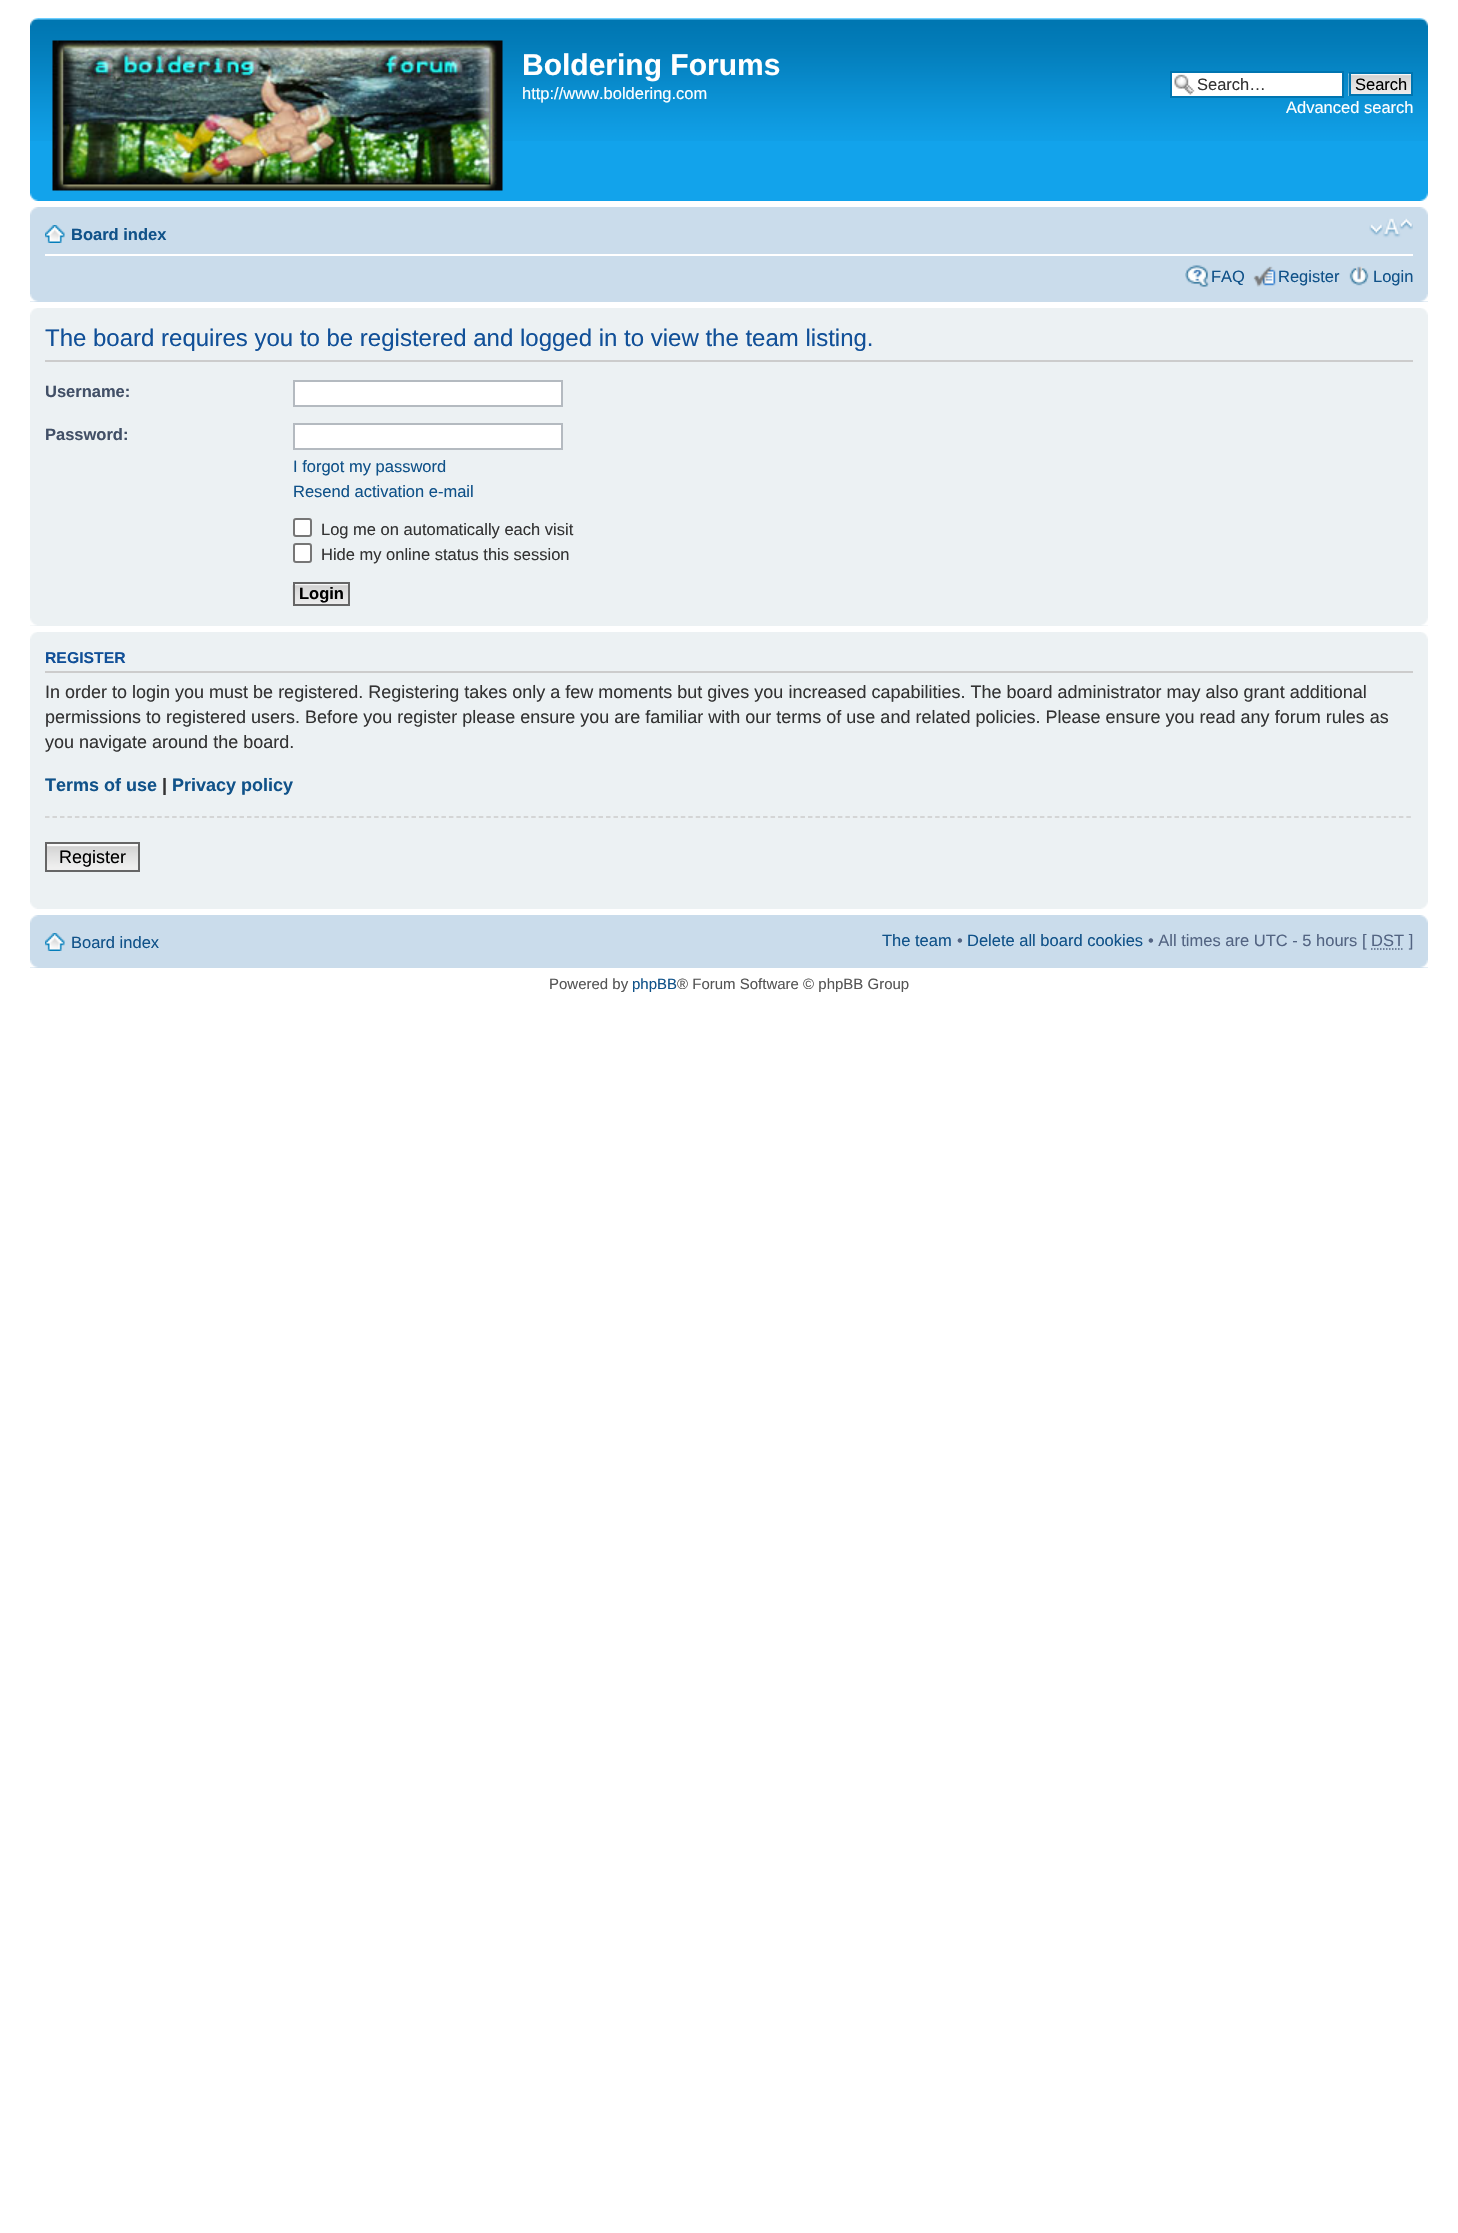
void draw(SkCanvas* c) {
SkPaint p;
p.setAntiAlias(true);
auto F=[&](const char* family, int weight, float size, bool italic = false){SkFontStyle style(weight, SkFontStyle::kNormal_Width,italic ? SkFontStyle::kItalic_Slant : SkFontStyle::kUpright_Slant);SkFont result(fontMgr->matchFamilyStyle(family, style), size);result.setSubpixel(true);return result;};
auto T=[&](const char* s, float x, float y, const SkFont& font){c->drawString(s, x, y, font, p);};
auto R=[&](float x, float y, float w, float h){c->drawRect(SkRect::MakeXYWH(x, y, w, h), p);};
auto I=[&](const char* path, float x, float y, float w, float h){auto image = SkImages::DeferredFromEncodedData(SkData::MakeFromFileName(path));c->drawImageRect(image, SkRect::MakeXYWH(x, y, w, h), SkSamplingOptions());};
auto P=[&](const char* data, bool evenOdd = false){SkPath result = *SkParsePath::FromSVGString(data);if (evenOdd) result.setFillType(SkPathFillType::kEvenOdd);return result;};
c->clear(0xffffffff);
p.setColor(0xff12a3eb);
R(30,141,1398,60);
I("1.png",30,18,1398,123);
I("2.png",30,18,8,8);
I("3.png",1420,18,8,8);
I("4.png",52,40,451,151);
auto f1 = F("Liberation Sans",700,30);
p.setColor(0xffffffff);
T("Boldering Forums",522,75,f1);
auto f2 = F("Liberation Sans",400,16.5);
T("http://www.boldering.com",522,99,f2);
R(1172,73,170,23);
I("5.png",1174,74,21,21);
p.setStroke(true);
p.setStrokeWidth(2);
p.setColor(0xff0075b0);
c->drawRect(SkRect::MakeXYWH(1171,72,172,25),p);
p.setStroke(false);
p.setColor(0xff333333);
T("Search…",1197,90,f2);
I("6.png",1348,73,63,23);
p.setStroke(true);
p.setColor(0xff0075b0);
c->drawRect(SkRect::MakeXYWH(1350,73,62,22),p);
p.setStroke(false);
p.setColor(0xff000000);
T("Search",1355,90,f2);
p.setColor(0xffffffff);
T("Advanced search",1286,113,f2);
I("7.png",30,193,8,8);
I("8.png",1420,193,8,8);
p.setColor(0xffcadceb);
R(30,207,1398,95);
I("9.png",30,207,8,8);
I("10.png",1420,207,8,8);
p.setColor(0xffffffff);
R(45,254,1368,2);
I("11.png",45,225,20,18);
auto f3 = F("Liberation Sans",700,16.5);
p.setColor(0xff105289);
T("Board index",71,240,f3);
I("12.png",1369,218,44,20);
I("13.png",1185,265,24,22);
T("FAQ",1211,282,f2);
I("14.png",1253,266,23,21);
T("Register",1278,282,f2);
I("15.png",1349,266,20,20);
T("Login",1373,282,f2);
I("16.png",30,294,8,8);
I("17.png",1420,294,8,8);
p.setColor(0xffecf1f3);
R(30,308,1398,318);
I("18.png",30,308,7,7);
I("19.png",1421,308,7,7);
p.setColor(0xffcccccc);
R(45,360,1368,2);
auto f4 = F("Liberation Sans",400,24);
p.setColor(0xff115098);
T("The board requires you to be registered and logged in to view the team listing.",45,346,f4);
p.setColor(0xff425067);
T("Username:",45,397,f3);
p.setColor(0xffffffff);
c->drawRect(SkRect::MakeXYWH(294,381,268,25),p);
p.setStroke(true);
p.setColor(0xffb4bac0);
c->drawRect(SkRect::MakeXYWH(294,381,268,25),p);
p.setStroke(false);
p.setColor(0xff425067);
T("Password:",45,440,f3);
p.setColor(0xffffffff);
c->drawRect(SkRect::MakeXYWH(294,424,268,25),p);
p.setStroke(true);
p.setColor(0xffb4bac0);
c->drawRect(SkRect::MakeXYWH(294,424,268,25),p);
p.setStroke(false);
p.setColor(0xff105289);
T("I forgot my password",293,472,f2);
T("Resend activation e-mail",293,497,f2);
p.setColor(0xffffffff);
c->drawRoundRect(SkRect::MakeXYWH(294,519,17,17),2,2,p);
p.setStroke(true);
p.setColor(0xff767676);
c->drawRoundRect(SkRect::MakeXYWH(294,519,17,17),2,2,p);
p.setStroke(false);
p.setColor(0xff333333);
T("Log me on automatically each visit",321,535,f2);
p.setColor(0xffffffff);
c->drawRoundRect(SkRect::MakeXYWH(294,544,17,18),2,2,p);
p.setStroke(true);
p.setColor(0xff767676);
c->drawRoundRect(SkRect::MakeXYWH(294,544,17,18),2,2,p);
p.setStroke(false);
p.setColor(0xff333333);
T("Hide my online status this session",321,560,f2);
I("20.png",292,583,56,23);
p.setStroke(true);
p.setColor(0xff666666);
c->drawRect(SkRect::MakeXYWH(294,583,55,22),p);
p.setStroke(false);
p.setColor(0xff000000);
T("Login",299,599,f3);
I("21.png",30,618,7,8);
I("22.png",1421,618,7,8);
p.setColor(0xffecf1f3);
R(30,632,1398,277);
I("18.png",30,632,7,7);
I("19.png",1421,632,7,7);
p.setColor(0xffcccccc);
R(45,671,1368,2);
auto f5 = F("Liberation Sans",700,15.75);
p.setColor(0xff115098);
T("REGISTER",45,663,f5);
auto f6 = F("Liberation Sans",400,18);
p.setColor(0xff333333);
T("In order to login you must be registered. Registering takes only a few moments but gives you increased capabilities. The board administrator may also grant additional",45,698,f6);
T("permissions to registered users. Before you register please ensure you are familiar with our terms of use and related policies. Please ensure you read any forum rules as",45,723,f6);
T("you navigate around the board.",45,748,f6);
auto f7 = F("Liberation Sans",700,18);
p.setColor(0xff105289);
T("Terms of use",45,791,f7);
p.setColor(0xff333333);
T("|",162,791,f7);
p.setColor(0xff105289);
T("Privacy policy",172,791,f7);
p.setStroke(true);
p.setStrokeWidth(1.5);
p.setColor(0xffcccccc);
p.setPathEffect(SkDashPathEffect::Make({{4.5f,2.98f}}, 0));
c->drawPath(P("M45 817h1368"),p);
p.setPathEffect(nullptr);
I("23.png",47,846,91,24);
p.setStroke(false);
p.setColor(0xfffafafa);
R(47,844,91,2);
p.setStroke(true);
p.setStrokeWidth(2);
p.setColor(0xff666666);
c->drawRect(SkRect::MakeXYWH(46,843,93,28),p);
p.setStroke(false);
p.setColor(0xff000000);
T("Register",59,863,f6);
I("24.png",30,902,7,7);
I("25.png",1421,902,7,7);
p.setColor(0xffcadceb);
R(30,915,1398,53);
I("9.png",30,915,8,8);
I("10.png",1420,915,8,8);
I("11.png",45,933,20,18);
p.setColor(0xff105289);
T("Board index",71,948,f2);
T("The team",882,946,f2);
p.setColor(0xff536482);
T("•",957,946,f2);
p.setColor(0xff105289);
T("Delete all board cookies",967,946,f2);
p.setColor(0xff536482);
T("• All times are UTC - 5 hours [ DST ]",1148,946,f2);
p.setStroke(true);
p.setStrokeWidth(1.5);
p.setPathEffect(SkDashPathEffect::Make({{1.5f,1.5f}}, 0));
c->drawPath(P("M1371 949h33"),p);
p.setPathEffect(nullptr);
I("16.png",30,960,8,8);
I("17.png",1420,960,8,8);
auto f8 = F("Liberation Sans",400,15);
p.setStroke(false);
p.setColor(0xff555555);
T("Powered by",549,989,f8);
p.setColor(0xff105289);
T("phpBB",632,989,f8);
p.setColor(0xff555555);
T("® Forum Software © phpBB Group",677,989,f8);
}
